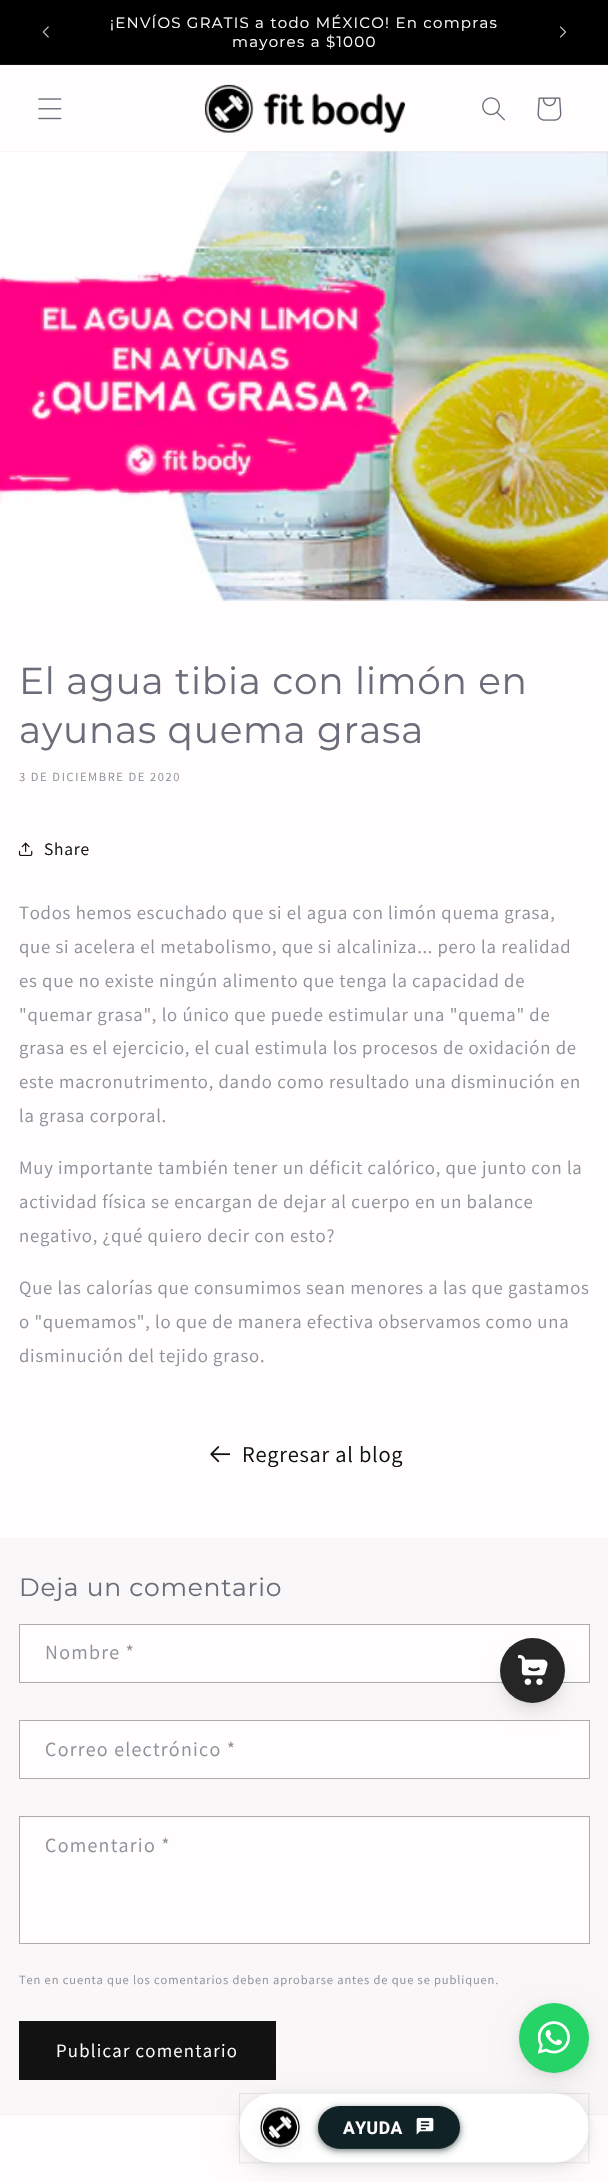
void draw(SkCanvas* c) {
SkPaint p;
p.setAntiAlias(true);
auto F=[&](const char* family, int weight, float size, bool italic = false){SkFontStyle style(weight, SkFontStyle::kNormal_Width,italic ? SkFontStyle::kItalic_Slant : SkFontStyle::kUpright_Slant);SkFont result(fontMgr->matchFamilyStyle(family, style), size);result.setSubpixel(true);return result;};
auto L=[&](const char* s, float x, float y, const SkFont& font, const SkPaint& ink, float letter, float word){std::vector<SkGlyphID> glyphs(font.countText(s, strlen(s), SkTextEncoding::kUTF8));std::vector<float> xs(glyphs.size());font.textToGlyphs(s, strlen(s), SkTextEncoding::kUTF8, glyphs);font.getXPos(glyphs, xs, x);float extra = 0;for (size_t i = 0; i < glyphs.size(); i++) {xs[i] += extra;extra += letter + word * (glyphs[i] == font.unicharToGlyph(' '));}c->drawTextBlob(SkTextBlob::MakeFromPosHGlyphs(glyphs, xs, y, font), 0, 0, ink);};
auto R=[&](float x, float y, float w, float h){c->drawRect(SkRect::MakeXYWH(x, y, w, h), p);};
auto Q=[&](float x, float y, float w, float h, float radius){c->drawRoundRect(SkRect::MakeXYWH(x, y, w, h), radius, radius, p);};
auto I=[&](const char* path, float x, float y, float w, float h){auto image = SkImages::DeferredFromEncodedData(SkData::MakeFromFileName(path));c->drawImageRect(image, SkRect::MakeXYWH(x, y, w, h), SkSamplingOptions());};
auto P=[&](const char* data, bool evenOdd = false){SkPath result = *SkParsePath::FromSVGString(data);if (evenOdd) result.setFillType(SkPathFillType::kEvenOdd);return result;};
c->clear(0xfffffdfd);
p.setColor(0xff000000);
R(0,0,608,64);
p.setColor(0xff141414);
R(0,64,608,1);
I("1.png",42,26,7,12);
auto f1 = F("Montserrat",400,15);
p.setColor(0xfffffdfd);
L("¡ENVÍOS GRATIS a todo MÉXICO! En compras",110,28,f1,p,1.25,0);
L("mayores a $1000",232,47,f1,p,1.25,0);
I("2.png",560,26,6,12);
I("3.png",38,98,24,22);
I("4.png",204,84,201,49);
I("5.png",482,97,23,24);
I("6.png",537,97,25,24);
p.setColor(0xfff1eeef);
R(0,151,608,1);
I("7.png",0,151,608,451);
auto f2 = F("Montserrat",400,37.5);
p.setColor(0xff6a6d79);
L("El agua tibia con limón en",19,694,f2,p,.75,0);
L("ayunas quema grasa",19,743,f2,p,.75,0);
auto f3 = F("Assistant",400,12.5);
p.setColor(0xff8f919a);
L("3 DE DICIEMBRE DE 2020",19,781,f3,p,1.6,0);
I("8.png",18,842,15,14);
auto f4 = F("Assistant",400,17.5);
p.setColor(0xff121212);
L("Share",44,855,f4,p,.75,0);
auto f5 = F("Assistant",400,18.75);
p.setColor(0xff8f919a);
L("Todos hemos escuchado que si el agua con limón quema grasa,",19,919,f5,p,.75,0);
L("que si acelera el metabolismo, que si alcaliniza... pero la realidad",19,953,f5,p,.75,0);
L("es que no existe ningún alimento que tenga la capacidad de",19,987,f5,p,.75,0);
L("\"quemar grasa\", lo único que puede estimular una \"quema\" de",19,1021,f5,p,.75,0);
L("grasa es el ejercicio, el cual estimula los procesos de oxidación de",19,1054,f5,p,.75,0);
L("este macronutrimento, dando como resultado una disminución en",19,1088,f5,p,.75,0);
L("la grasa corporal.",19,1122,f5,p,.75,0);
L("Muy importante también tener un déficit calórico, que junto con la",19,1174,f5,p,.75,0);
L("actividad física se encargan de dejar al cuerpo en un balance",19,1208,f5,p,.75,0);
L("negativo, ¿qué quiero decir con esto?",19,1242,f5,p,.75,0);
L("Que las calorías que consumimos sean menores a las que gastamos",19,1294,f5,p,.75,0);
L("o \"quemamos\", lo que de manera efectiva observamos como una",19,1328,f5,p,.75,0);
L("disminución del tejido graso.",19,1362,f5,p,.75,0);
I("9.png",210,1446,20,17);
auto f6 = F("Assistant",400,22.5);
p.setColor(0xff121212);
L("Regresar al blog",242,1462,f6,p,.75,0);
p.setColor(0xfffaf7f8);
R(0,1538,608,576);
auto f7 = F("Montserrat",400,25);
p.setColor(0xff6a6d79);
L("Deja un comentario",19,1596,f7,p,.75,0);
p.setColor(0xfffffdfd);
R(20,1625,569,56);
p.setStroke(true);
p.setStrokeWidth(1);
p.setColor(0xffababb2);
c->drawRect(SkRect::MakeXYWH(19.5,1624.5,570,58),p);
auto f8 = F("Assistant",400,20);
p.setStroke(false);
p.setColor(0xff8f919a);
L("Nombre *",45,1659,f8,p,1.25,0);
p.setColor(0xfffffdfd);
R(20,1721,569,57);
p.setStroke(true);
p.setColor(0xffababb2);
c->drawRect(SkRect::MakeXYWH(19.5,1720.5,570,58),p);
p.setStroke(false);
p.setColor(0xff8f919a);
L("Correo electrónico *",45,1756,f8,p,1.25,0);
p.setColor(0xfffffdfd);
R(20,1818,569,125);
p.setStroke(true);
p.setColor(0xffababb2);
c->drawRect(SkRect::MakeXYWH(19.5,1816.5,570,127),p);
p.setStroke(false);
p.setColor(0xff8f919a);
L("Comentario *",45,1852,f8,p,1.25,0);
L("Ten en cuenta que los comentarios deben aprobarse antes de que se publiquen.",19,1984,f3,p,.88,0);
p.setColor(0xff121212);
R(19,2021,257,59);
p.setColor(0xfffffdfd);
L("Publicar comentario",56,2057,f5,p,1.25,0);
p.setColor(0x1a000000);
p.setMaskFilter(SkMaskFilter::MakeBlur(kNormal_SkBlurStyle, 4));
c->drawRoundRect(SkRect::MakeXYWH(505,1648,55,55),27.5,27.5,p);
p.setMaskFilter(nullptr);
p.setMaskFilter(SkMaskFilter::MakeBlur(kNormal_SkBlurStyle, 9.5));
c->drawRoundRect(SkRect::MakeXYWH(504,1654,57,57),28.5,28.5,p);
p.setMaskFilter(nullptr);
p.setColor(0xff262626);
c->drawCircle(532.5,1670.5,32.5,p);
I("10.png",518,1655,30,30);
p.setColor(0xfff3f1f2);
R(0,2114,608,1);
p.setStroke(true);
p.setStrokeWidth(.6);
p.setColor(0xfff0edee);
c->drawCircle(554.5,2038.5,35.2,p);
p.setStroke(false);
p.setColor(0x0f000000);
p.setMaskFilter(SkMaskFilter::MakeBlur(kNormal_SkBlurStyle, 15));
c->drawRoundRect(SkRect::MakeXYWH(519,2013,70,70),35,35,p);
p.setMaskFilter(nullptr);
p.setStroke(true);
p.setColor(0x0a000000);
c->drawRect(SkRect::MakeXYWH(239.3,2093.3,350.4,70.4),p);
p.setStroke(false);
p.setColor(0x14000000);
p.setMaskFilter(SkMaskFilter::MakeBlur(kNormal_SkBlurStyle, 5));
c->drawRoundRect(SkRect::MakeXYWH(239,2095,350,70),35,35,p);
p.setMaskFilter(nullptr);
p.setMaskFilter(SkMaskFilter::MakeBlur(kNormal_SkBlurStyle, 5));
c->drawRoundRect(SkRect::MakeXYWH(519,2005,70,70),35,35,p);
p.setMaskFilter(nullptr);
p.setColor(0xff25d366);
c->drawCircle(554,2038,35,p);
p.setColor(0x0f000000);
p.setMaskFilter(SkMaskFilter::MakeBlur(kNormal_SkBlurStyle, 15));
c->drawRoundRect(SkRect::MakeXYWH(239,2103,350,70),35,35,p);
p.setMaskFilter(nullptr);
p.setColor(0xffffffff);
Q(239,2093,350,70,35);
p.setStroke(true);
p.setStrokeWidth(1);
p.setColor(0x0f000000);
c->drawRect(SkRect::MakeXYWH(239.5,2093.5,349,69),p);
p.setStroke(false);
p.setMaskFilter(SkMaskFilter::MakeBlur(kNormal_SkBlurStyle, 5));
c->drawRoundRect(SkRect::MakeXYWH(260,2110,40,40),20,20,p);
p.setMaskFilter(nullptr);
p.setStroke(true);
p.setStrokeWidth(.6);
p.setColor(0x0a000000);
c->drawRect(SkRect::MakeXYWH(260.3,2108.3,40.4,40.4),p);
p.setStroke(false);
p.setColor(0xffffffff);
c->drawCircle(280,2128,20,p);
p.setColor(0x99ffffff);
c->drawPath(P("M280 2109c16 0 22 15 19 26c9-23-27-39-37-15c-2 5-3 11-1 15c-3-11 3-26 19-26z"),p);
I("11.png",260,2107,40,41);
p.setColor(0x66102225);
p.setMaskFilter(SkMaskFilter::MakeBlur(kNormal_SkBlurStyle, 2.5));
c->drawRoundRect(SkRect::MakeXYWH(318,2108,142,42),21,21,p);
p.setMaskFilter(nullptr);
p.setColor(0x59102225);
p.setMaskFilter(SkMaskFilter::MakeBlur(kNormal_SkBlurStyle, 5));
c->drawRoundRect(SkRect::MakeXYWH(318,2109,142,42),21,21,p);
p.setMaskFilter(nullptr);
p.setColor(0xff102225);
Q(318,2106,142,43,21.5);
p.setColor(0x14ffffff);
c->drawPath(P("M318 2127c0 10 7 20 17 22h21h87c10-2 17-12 17-22c0 11-10 21-21 21h-100c-12 0-21-10-21-21z"),p);
auto f9 = F("Roboto",700,17.5);
p.setColor(0xfffffdfd);
L("AYUDA",343,2134,f9,p,.5,0);
I("12.png",416,2117,18,18);
I("13.png",538,2021,32,33);
}
